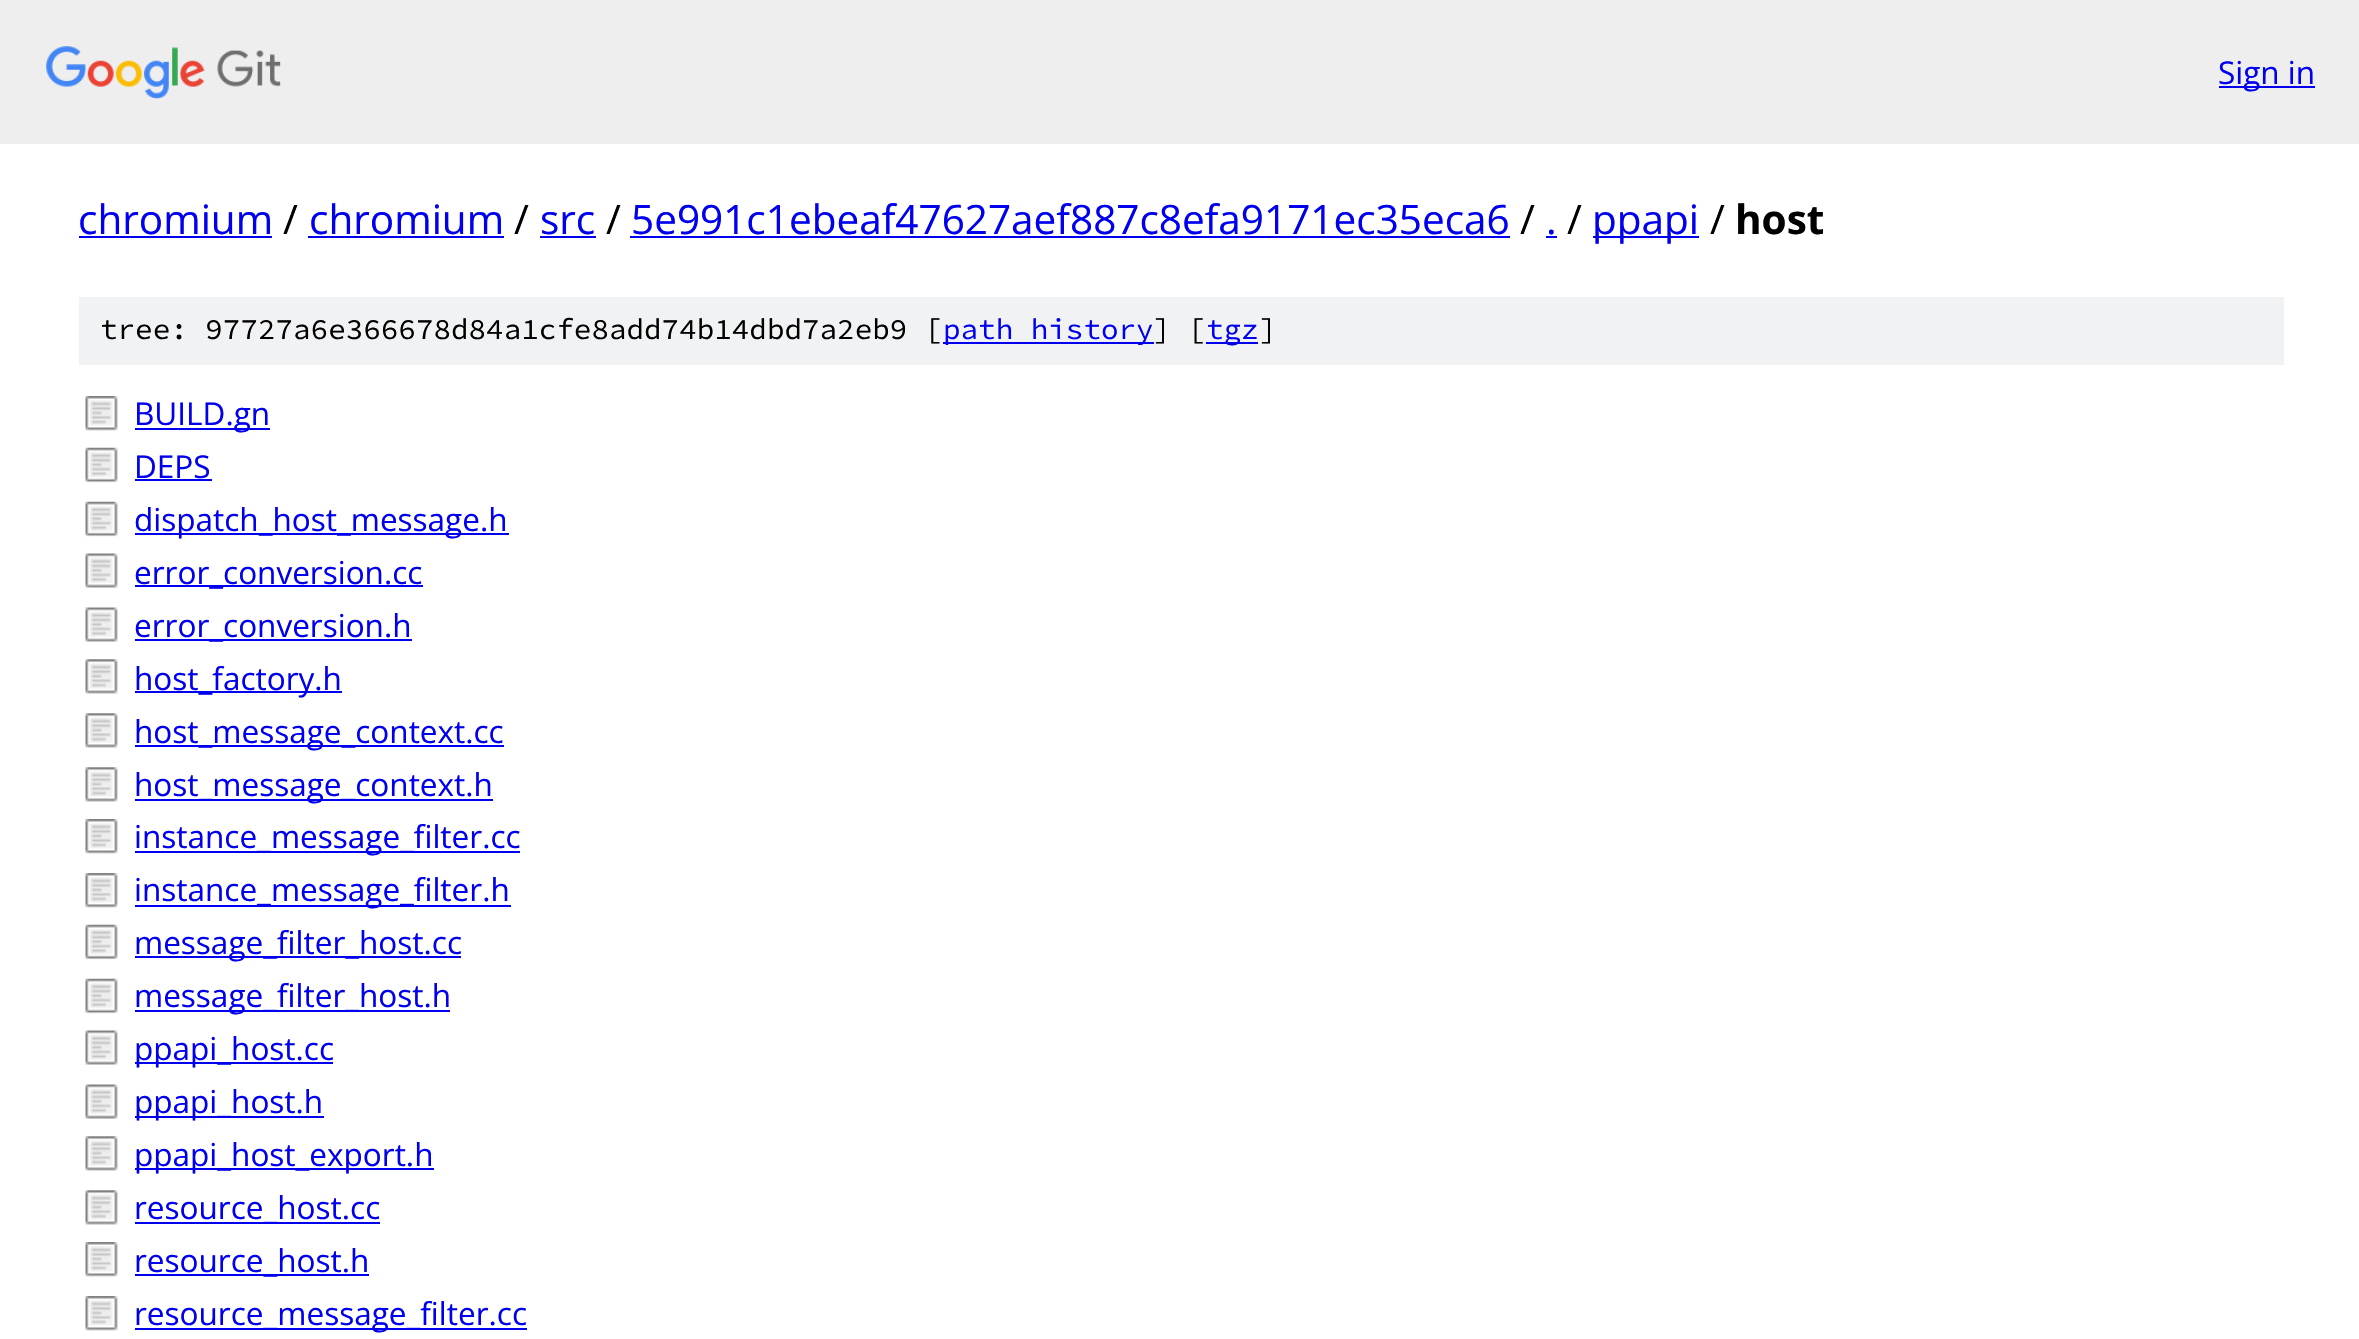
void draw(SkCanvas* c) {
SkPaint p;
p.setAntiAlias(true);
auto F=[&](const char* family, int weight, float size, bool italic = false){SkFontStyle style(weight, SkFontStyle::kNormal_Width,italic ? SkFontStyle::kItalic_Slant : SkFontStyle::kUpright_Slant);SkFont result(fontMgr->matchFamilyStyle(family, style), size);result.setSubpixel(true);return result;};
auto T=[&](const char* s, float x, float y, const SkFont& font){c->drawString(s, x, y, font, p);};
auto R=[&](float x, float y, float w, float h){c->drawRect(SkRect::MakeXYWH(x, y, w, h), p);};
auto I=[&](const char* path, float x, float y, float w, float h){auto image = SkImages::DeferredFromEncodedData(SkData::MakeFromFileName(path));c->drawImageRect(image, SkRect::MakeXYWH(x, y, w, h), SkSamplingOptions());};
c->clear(0xffffffff);
p.setColor(0xffeeeeee);
R(0,0,2359,144);
I("1.png",46,46,235,53);
p.setColor(0xff0000ee);
R(2219,86,96,2);
auto f1 = F("Open Sans",400,31.5);
T("Sign in",2218,84,f1);
auto f2 = F("Open Sans",400,40.5);
T("chromium",78,234,f2);
R(79,236,193,2);
p.setColor(0xff000000);
T("/",283,234,f2);
p.setColor(0xff0000ee);
T("chromium",309,234,f2);
R(308,236,196,2);
p.setColor(0xff000000);
T("/",514,234,f2);
p.setColor(0xff0000ee);
T("src",540,234,f2);
R(540,236,56,2);
p.setColor(0xff000000);
T("/",606,234,f2);
p.setColor(0xff0000ee);
T("5e991c1ebeaf47627aef887c8efa9171ec35eca6",631,234,f2);
R(630,236,880,2);
p.setColor(0xff000000);
T("/",1520,234,f2);
p.setColor(0xff0000ee);
T(".",1546,234,f2);
R(1546,236,11,2);
p.setColor(0xff000000);
T("/",1567,234,f2);
p.setColor(0xff0000ee);
R(1593,236,106,2);
T("ppapi",1592,234,f2);
p.setColor(0xff000000);
T("/",1710,234,f2);
auto f3 = F("Open Sans",700,40.5);
T("host",1735,234,f3);
p.setColor(0xfff1f2f3);
R(79,297,2205,68);
auto f4 = F("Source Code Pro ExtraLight",200,29.25);
p.setColor(0xff000000);
T("tree: 97727a6e366678d84a1cfe8add74b14dbd7a2eb9 [",100,339,f4);
p.setColor(0xff0000ee);
R(943,342,211,2);
T("path history",943,339,f4);
p.setColor(0xff000000);
T("] [",1153,339,f4);
p.setColor(0xff0000ee);
R(1206,342,52,2);
T("tgz",1206,339,f4);
p.setColor(0xff000000);
T("]",1259,339,f4);
I("2.png",85,396,33,35);
p.setColor(0xff0000ee);
R(135,428,135,2);
T("BUILD.gn",134,425,f1);
I("3.png",85,447,33,36);
T("DEPS",134,478,f1);
R(135,479,77,2);
I("3.png",85,501,33,36);
R(135,533,374,2);
T("dispatch_host_message.h",134,531,f1);
I("4.png",85,553,33,35);
R(135,585,288,2);
T("error_conversion.cc",134,584,f1);
I("5.png",85,607,33,35);
R(135,639,277,2);
T("error_conversion.h",134,637,f1);
I("6.png",85,659,33,35);
R(135,691,207,2);
T("host_factory.h",134,690,f1);
I("6.png",85,713,33,35);
R(135,745,369,2);
T("host_message_context.cc",134,743,f1);
I("6.png",85,767,33,35);
R(135,799,358,2);
T("host_message_context.h",134,796,f1);
I("7.png",85,819,33,35);
R(135,851,385,2);
T("instance_message_filter.cc",134,848,f1);
I("2.png",85,873,33,35);
R(135,905,376,2);
T("instance_message_filter.h",134,901,f1);
I("3.png",85,924,33,36);
R(135,956,326,2);
T("message_filter_host.cc",134,954,f1);
I("3.png",85,978,33,36);
R(135,1010,315,2);
T("message_filter_host.h",134,1007,f1);
I("5.png",85,1030,33,35);
R(135,1062,198,2);
T("ppapi_host.cc",134,1060,f1);
I("5.png",85,1084,33,35);
R(135,1116,189,2);
T("ppapi_host.h",134,1113,f1);
I("8.png",85,1136,33,35);
R(135,1168,299,2);
T("ppapi_host_export.h",134,1166,f1);
I("6.png",85,1190,33,35);
R(135,1222,245,2);
T("resource_host.cc",134,1219,f1);
I("2.png",85,1242,33,35);
R(135,1274,234,2);
T("resource_host.h",134,1272,f1);
I("2.png",85,1296,33,35);
R(135,1328,392,2);
T("resource_message_filter.cc",134,1325,f1);
}
